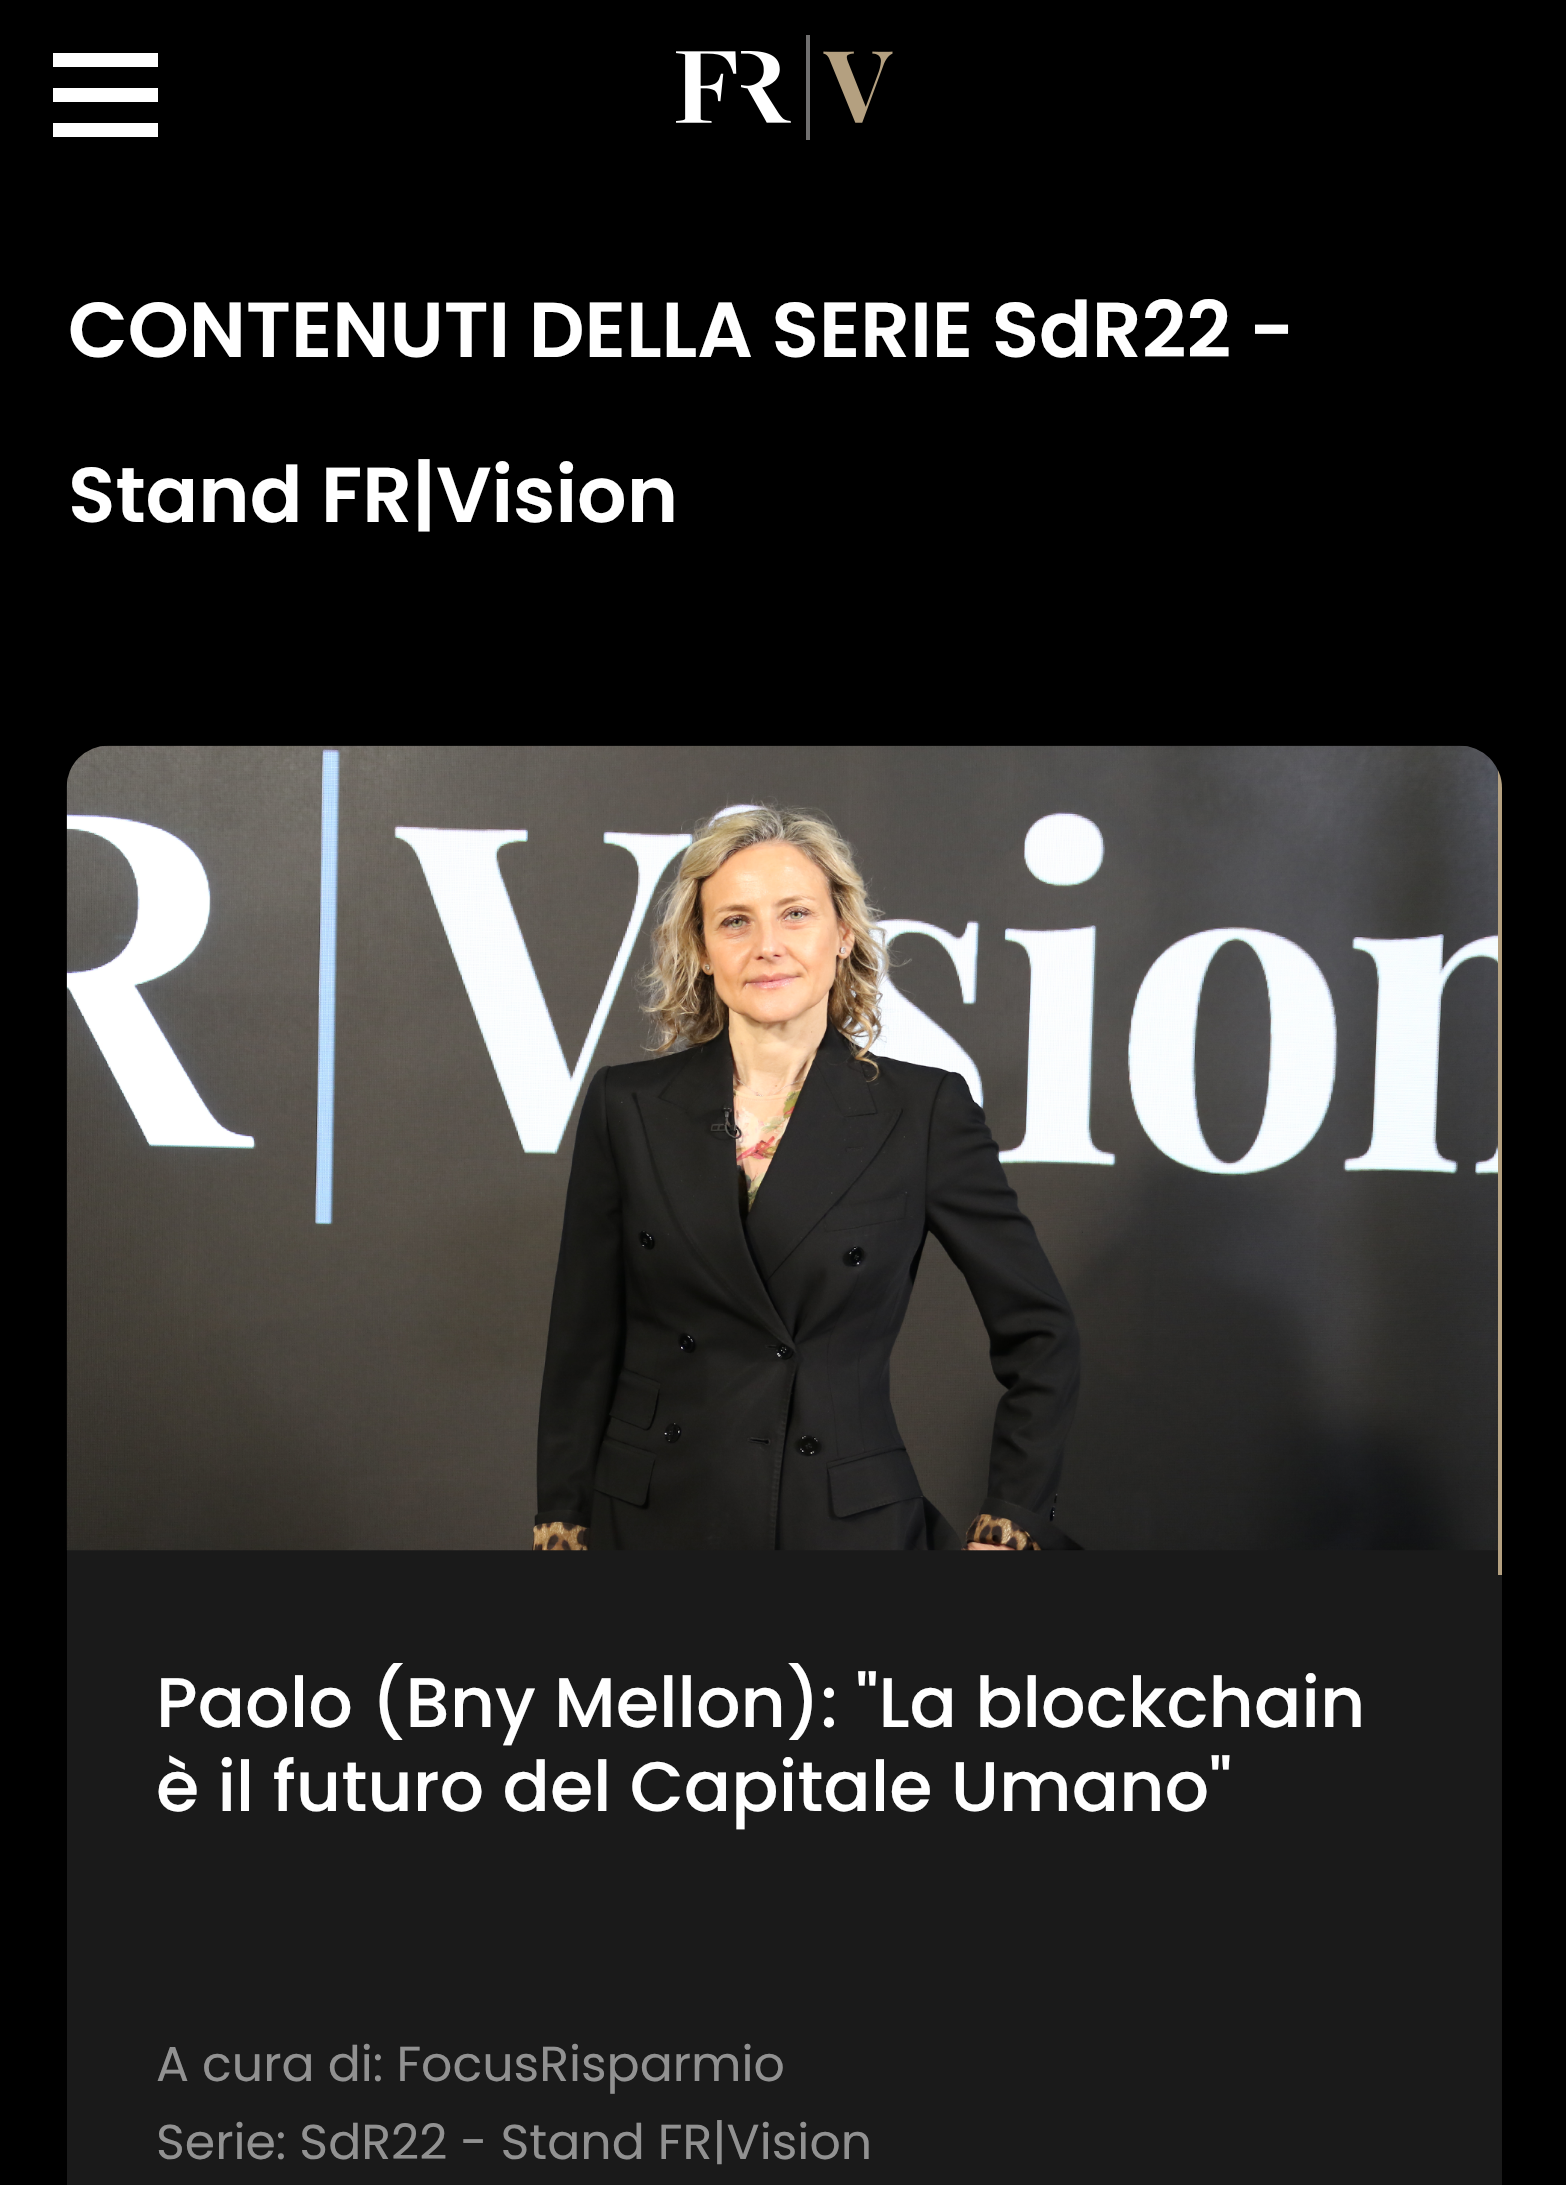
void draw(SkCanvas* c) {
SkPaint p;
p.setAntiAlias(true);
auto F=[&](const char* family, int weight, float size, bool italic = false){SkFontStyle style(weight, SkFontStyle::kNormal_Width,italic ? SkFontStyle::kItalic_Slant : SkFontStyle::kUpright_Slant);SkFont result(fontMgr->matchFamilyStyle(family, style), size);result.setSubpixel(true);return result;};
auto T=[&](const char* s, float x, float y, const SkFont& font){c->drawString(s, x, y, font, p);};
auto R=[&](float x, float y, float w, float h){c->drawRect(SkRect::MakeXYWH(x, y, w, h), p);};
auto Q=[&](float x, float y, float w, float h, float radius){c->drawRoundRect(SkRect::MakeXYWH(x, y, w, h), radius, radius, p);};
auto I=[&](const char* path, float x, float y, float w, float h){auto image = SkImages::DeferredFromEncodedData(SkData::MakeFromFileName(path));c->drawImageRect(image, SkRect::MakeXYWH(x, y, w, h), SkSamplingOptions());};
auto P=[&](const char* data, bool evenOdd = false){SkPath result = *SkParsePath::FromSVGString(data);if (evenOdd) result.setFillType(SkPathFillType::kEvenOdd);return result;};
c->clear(0xff000000);
p.setColor(0xffffffff);
R(53,88,105,14);
R(53,53,105,14);
R(53,123,105,14);
I("1.png",676,35,217,105);
auto f1 = F("Poppins",600,77.8);
T("CONTENUTI DELLA SERIE SdR22 -",68,357,f1);
T("Stand FR|Vision",68,522,f1);
p.setColor(0xff1a1a1a);
Q(67,746,1435,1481,42);
I("2.png",66,745,1432,806);
c->save();
c->clipPath(P("M109 746h1351c23 0 42 19 42 42v787h-1435v-787c0-23 19-42 42-42z"),true);
p.setColor(0xffb4a080);
R(1498,770,4,805);
c->restore();
c->save();
c->clipRect(SkRect::MakeXYWH(154,1663,1260,168));
auto f2 = F("Poppins",500,70);
p.setColor(0xffffffff);
T("Paolo (Bny Mellon): \"La blockchain",156,1727,f2);
c->restore();
T("è il futuro del Capitale Umano\"",156,1811,f2);
auto f3 = F("Poppins",400,49);
p.setColor(0xff919191);
T("A cura di: FocusRisparmio",156,2081,f3);
T("Serie: SdR22 - Stand FR|Vision",156,2159,f3);
}
